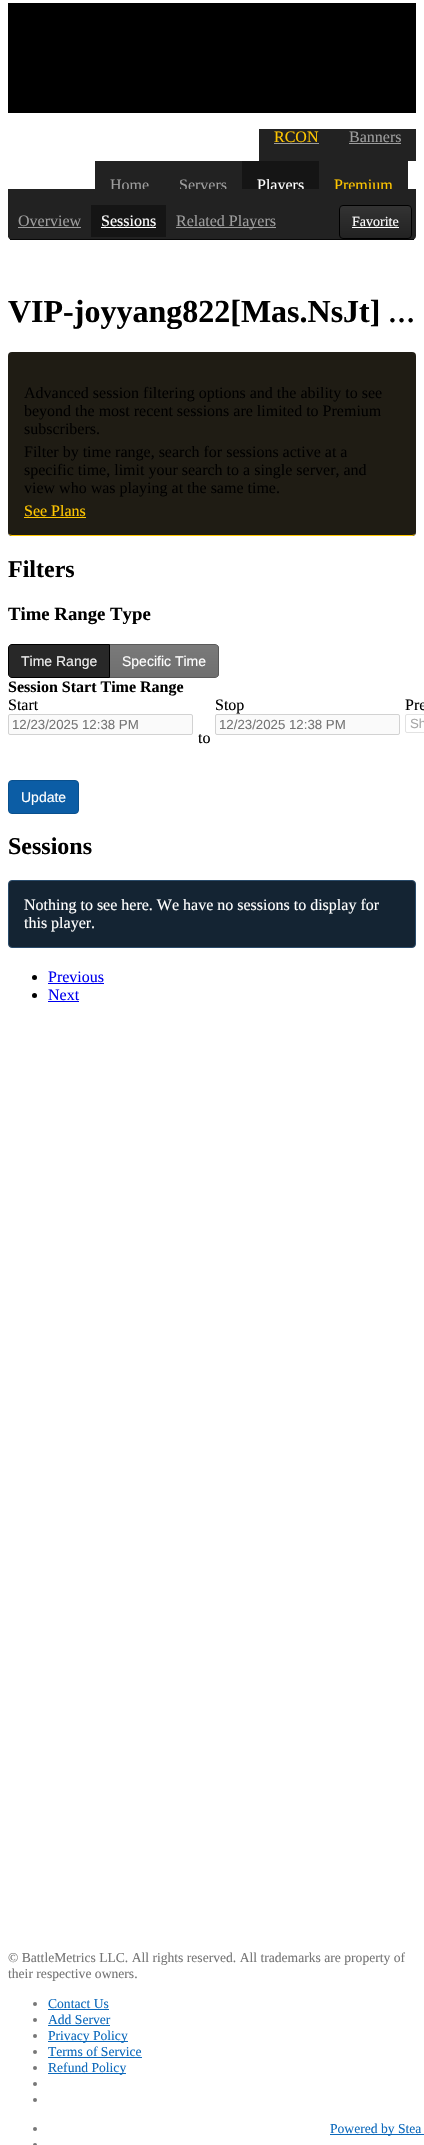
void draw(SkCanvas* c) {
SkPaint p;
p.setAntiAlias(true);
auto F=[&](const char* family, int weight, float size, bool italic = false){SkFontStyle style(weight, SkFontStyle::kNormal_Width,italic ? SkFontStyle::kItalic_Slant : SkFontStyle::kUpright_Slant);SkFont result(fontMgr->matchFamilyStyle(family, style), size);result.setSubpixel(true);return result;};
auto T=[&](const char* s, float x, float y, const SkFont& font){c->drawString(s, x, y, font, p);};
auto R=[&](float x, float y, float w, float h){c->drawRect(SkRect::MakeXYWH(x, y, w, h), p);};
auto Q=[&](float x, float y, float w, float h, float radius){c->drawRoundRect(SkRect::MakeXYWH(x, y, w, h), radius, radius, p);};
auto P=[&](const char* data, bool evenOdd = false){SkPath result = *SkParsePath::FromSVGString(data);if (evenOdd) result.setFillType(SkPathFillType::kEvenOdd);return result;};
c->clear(0xffffffff);
p.setColor(0xff000000);
R(8,3,408,110);
p.setColor(0xff222222);
R(259,129,157,32);
auto f1 = F("Liberation Serif",400,16);
p.setColor(0xffffc600);
T("RCON",274,142,f1);
p.setColor(0xff9d9d9d);
R(274,143,45,1);
T("Banners",349,142,f1);
R(349,143,52,1);
p.setColor(0xff222222);
R(95,161,147,28);
p.setColor(0xff9d9d9d);
T("Home",110,190,f1);
T("Servers",179,190,f1);
p.setColor(0xff151515);
R(242,161,77,28);
p.setColor(0xffffffff);
T("Players",257,190,f1);
p.setColor(0xff222222);
R(319,161,89,28);
p.setColor(0xffffc600);
T("Premium",334,190,f1);
p.setColor(0xff222222);
c->drawPath(P("M8 189h408v47c0 2-2 4-4 4h-400c-2 0-4-2-4-4z"),p);
p.setColor(0xff080808);
R(10,239,404,1);
p.setColor(0xff222222);
R(8,236,1,1);
p.setColor(0xff9d9d9d);
T("Overview",18,226,f1);
R(18,227,63,1);
p.setColor(0xff151515);
R(91,205,75,32);
p.setColor(0xffffffff);
T("Sessions",101,226,f1);
R(101,227,55,1);
p.setColor(0xff9d9d9d);
R(176,227,100,1);
T("Related Players",176,226,f1);
c->save();
c->clipPath(P("M343 205h65c2 0 4 2 4 4v26c0 2-2 4-4 4h-65c-2 0-4-2-4-4v-26c0-2 2-4 4-4z"),true);
{
const SkColor colors[] = {0xff333333,0xff222222};
const float stops[] = {0,1};
const SkPoint ends[] = {{376,206}, {376,238}};
p.setShader(SkGradientShader::MakeLinear(ends, colors, stops, 2, SkTileMode::kClamp));
p.setAlpha(255);
}
R(339,206,73,32);
c->restore();
p.setStroke(true);
p.setStrokeWidth(1);
p.setShader(nullptr);
p.setColor(0xff000000);
c->drawRoundRect(SkRect::MakeXYWH(339.5,205.5,72,33),3.5,3.5,p);
auto f2 = F("Liberation Serif",400,14);
p.setStroke(false);
p.setColor(0xffffffff);
T("Favorite",352,226,f2);
R(352,227,47,1);
auto f3 = F("Liberation Serif",700,32);
p.setColor(0xff000000);
T("VIP-joyyang822[Mas.NsJt]",8,322,f3);
auto f4 = F("Liberation Serif",700,27);
T("…",388,322,f4);
p.setColor(0xff1f1c14);
Q(8,352,408,184,4);
p.setStroke(true);
p.setColor(0xffffc600);
c->drawPath(P("M414.5 534.5c-.5 .5-1.5 1-2.5 1h-400c-1 0-2-.5-2.5-1"),p);
p.setStroke(false);
p.setColor(0xff000000);
T("Advanced session filtering options and the ability to see",24,398,f1);
T("beyond the most recent sessions are limited to Premium",24,416,f1);
T("subscribers.",24,434,f1);
T("Filter by time range, search for sessions active at a",24,457,f1);
T("specific time, limit your search to a single server, and",24,475,f1);
T("view who was playing at the same time.",24,493,f1);
p.setColor(0xffffc600);
T("See Plans",24,516,f1);
R(24,517,62,1);
auto f5 = F("Liberation Serif",700,24);
p.setColor(0xff000000);
T("Filters",8,577,f5);
auto f6 = F("Liberation Serif",700,18.75);
T("Time Range Type",8,620,f6);
c->save();
c->clipPath(P("M109 644h106c2 0 4 2 4 4v26c0 2-2 4-4 4h-106z"),true);
{
const SkColor colors[] = {0xff7a7a7a,0xff6f6f6f};
const float stops[] = {0,1};
const SkPoint ends[] = {{164,645}, {164,677}};
p.setShader(SkGradientShader::MakeLinear(ends, colors, stops, 2, SkTileMode::kClamp));
p.setAlpha(255);
}
R(110,645,109,32);
c->restore();
p.setStroke(true);
p.setShader(nullptr);
p.setColor(0xff595959);
c->drawPath(P("M109.5 644.5h105.5c2 0 3.5 1.5 3.5 3.5v26c0 2-1.5 3.5-3.5 3.5h-105.5z"),p);
p.setStroke(false);
p.setColor(0xff282828);
c->drawPath(P("M12 644.5h97.5v33h-97.5c-2 0-3.5-1.5-3.5-3.5v-26c0-2 1.5-3.5 3.5-3.5z"),p);
p.setStroke(true);
p.setColor(0xff000000);
c->drawPath(P("M12 644.5h97.5v33h-97.5c-2 0-3.5-1.5-3.5-3.5v-26c0-2 1.5-3.5 3.5-3.5z"),p);
auto f7 = F("Liberation Sans",400,14);
p.setStroke(false);
p.setColor(0xffeeeeee);
T("Time Range",21,666,f7);
p.setColor(0xffffffff);
T("Specific Time",122,666,f7);
auto f8 = F("Liberation Serif",700,16);
p.setColor(0xff000000);
T("Session Start Time Range",8,692,f8);
T("Start",8,710,f1);
p.setColor(0xfffafafa);
c->drawRoundRect(SkRect::MakeXYWH(8.5,714.5,184,20),1.5,1.5,p);
p.setStroke(true);
p.setColor(0xffd2d2d2);
c->drawRoundRect(SkRect::MakeXYWH(8.5,714.5,184,20),1.5,1.5,p);
auto f9 = F("Liberation Sans",400,13.25);
p.setStroke(false);
p.setColor(0xff757575);
T("12/23/2025 12:38 PM",12,729,f9);
p.setColor(0xff000000);
T("Stop",215,710,f1);
p.setColor(0xfffafafa);
c->drawRoundRect(SkRect::MakeXYWH(215.5,714.5,184,20),1.5,1.5,p);
p.setStroke(true);
p.setColor(0xffd2d2d2);
c->drawRoundRect(SkRect::MakeXYWH(215.5,714.5,184,20),1.5,1.5,p);
p.setStroke(false);
p.setColor(0xff757575);
T("12/23/2025 12:38 PM",219,729,f9);
p.setColor(0xff000000);
T("Pre",405,710,f1);
p.setStroke(true);
p.setColor(0xffe2e2e2);
c->drawRoundRect(SkRect::MakeXYWH(405.5,714.5,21,18),1.5,1.5,p);
p.setStroke(false);
p.setColor(0xffa6a6a6);
T("Sh",410,728,f9);
p.setColor(0xff000000);
T("to",198,743,f1);
p.setColor(0xff0c5da5);
c->drawRoundRect(SkRect::MakeXYWH(8.5,780.5,70,33),3.5,3.5,p);
p.setStroke(true);
p.setColor(0xff0a508d);
c->drawRoundRect(SkRect::MakeXYWH(8.5,780.5,70,33),3.5,3.5,p);
p.setStroke(false);
p.setColor(0xffffffff);
T("Update",21,802,f7);
p.setColor(0xff000000);
T("Sessions",8,854,f5);
p.setColor(0xff142433);
c->drawRoundRect(SkRect::MakeXYWH(8.5,880.5,407,67),3.5,3.5,p);
p.setStroke(true);
p.setColor(0xff2a4b6a);
c->drawRoundRect(SkRect::MakeXYWH(8.5,880.5,407,67),3.5,3.5,p);
p.setStroke(false);
p.setColor(0xffffffff);
T("Nothing to see here. We have no sessions to display for",24,910,f1);
T("this player.",24,928,f1);
p.setColor(0xff000000);
c->drawCircle(34.5,977.5,2.5,p);
p.setColor(0xff0000ee);
T("Previous",48,982,f1);
R(48,983,56,1);
p.setColor(0xff000000);
c->drawCircle(34.5,995.5,2.5,p);
p.setColor(0xff0000ee);
T("Next",48,1000,f1);
R(48,1001,31,1);
auto f10 = F("Liberation Serif",400,13.6);
p.setColor(0xff757575);
T("© BattleMetrics LLC. All rights reserved. All trademarks are property of",8,1962,f10);
T("their respective owners.",8,1978,f10);
p.setColor(0xff777777);
c->drawCircle(35,2004,2,p);
p.setColor(0xff0e6abc);
T("Contact Us",48,2008,f10);
R(48,2009,61,1);
p.setColor(0xff777777);
c->drawCircle(35,2020,2,p);
p.setColor(0xff0e6abc);
T("Add Server",48,2024,f10);
R(48,2025,62,1);
p.setColor(0xff777777);
c->drawCircle(35,2036,2,p);
p.setColor(0xff0e6abc);
R(48,2041,80,1);
T("Privacy Policy",48,2040,f10);
p.setColor(0xff777777);
c->drawCircle(35,2052,2,p);
p.setColor(0xff0e6abc);
T("Terms of Service",48,2056,f10);
R(48,2057,94,1);
p.setColor(0xff777777);
c->drawCircle(35,2068,2,p);
p.setColor(0xff0e6abc);
R(48,2073,78,1);
T("Refund Policy",48,2072,f10);
p.setColor(0xff777777);
c->drawCircle(35,2084,2,p);
c->drawCircle(35,2100,2,p);
c->drawCircle(35,2129,2,p);
p.setColor(0xff0e6abc);
R(330,2134,94,1);
T("Powered by Stea",330,2133,f10);
p.setColor(0xff777777);
c->drawCircle(35,2145,2,p);
}
